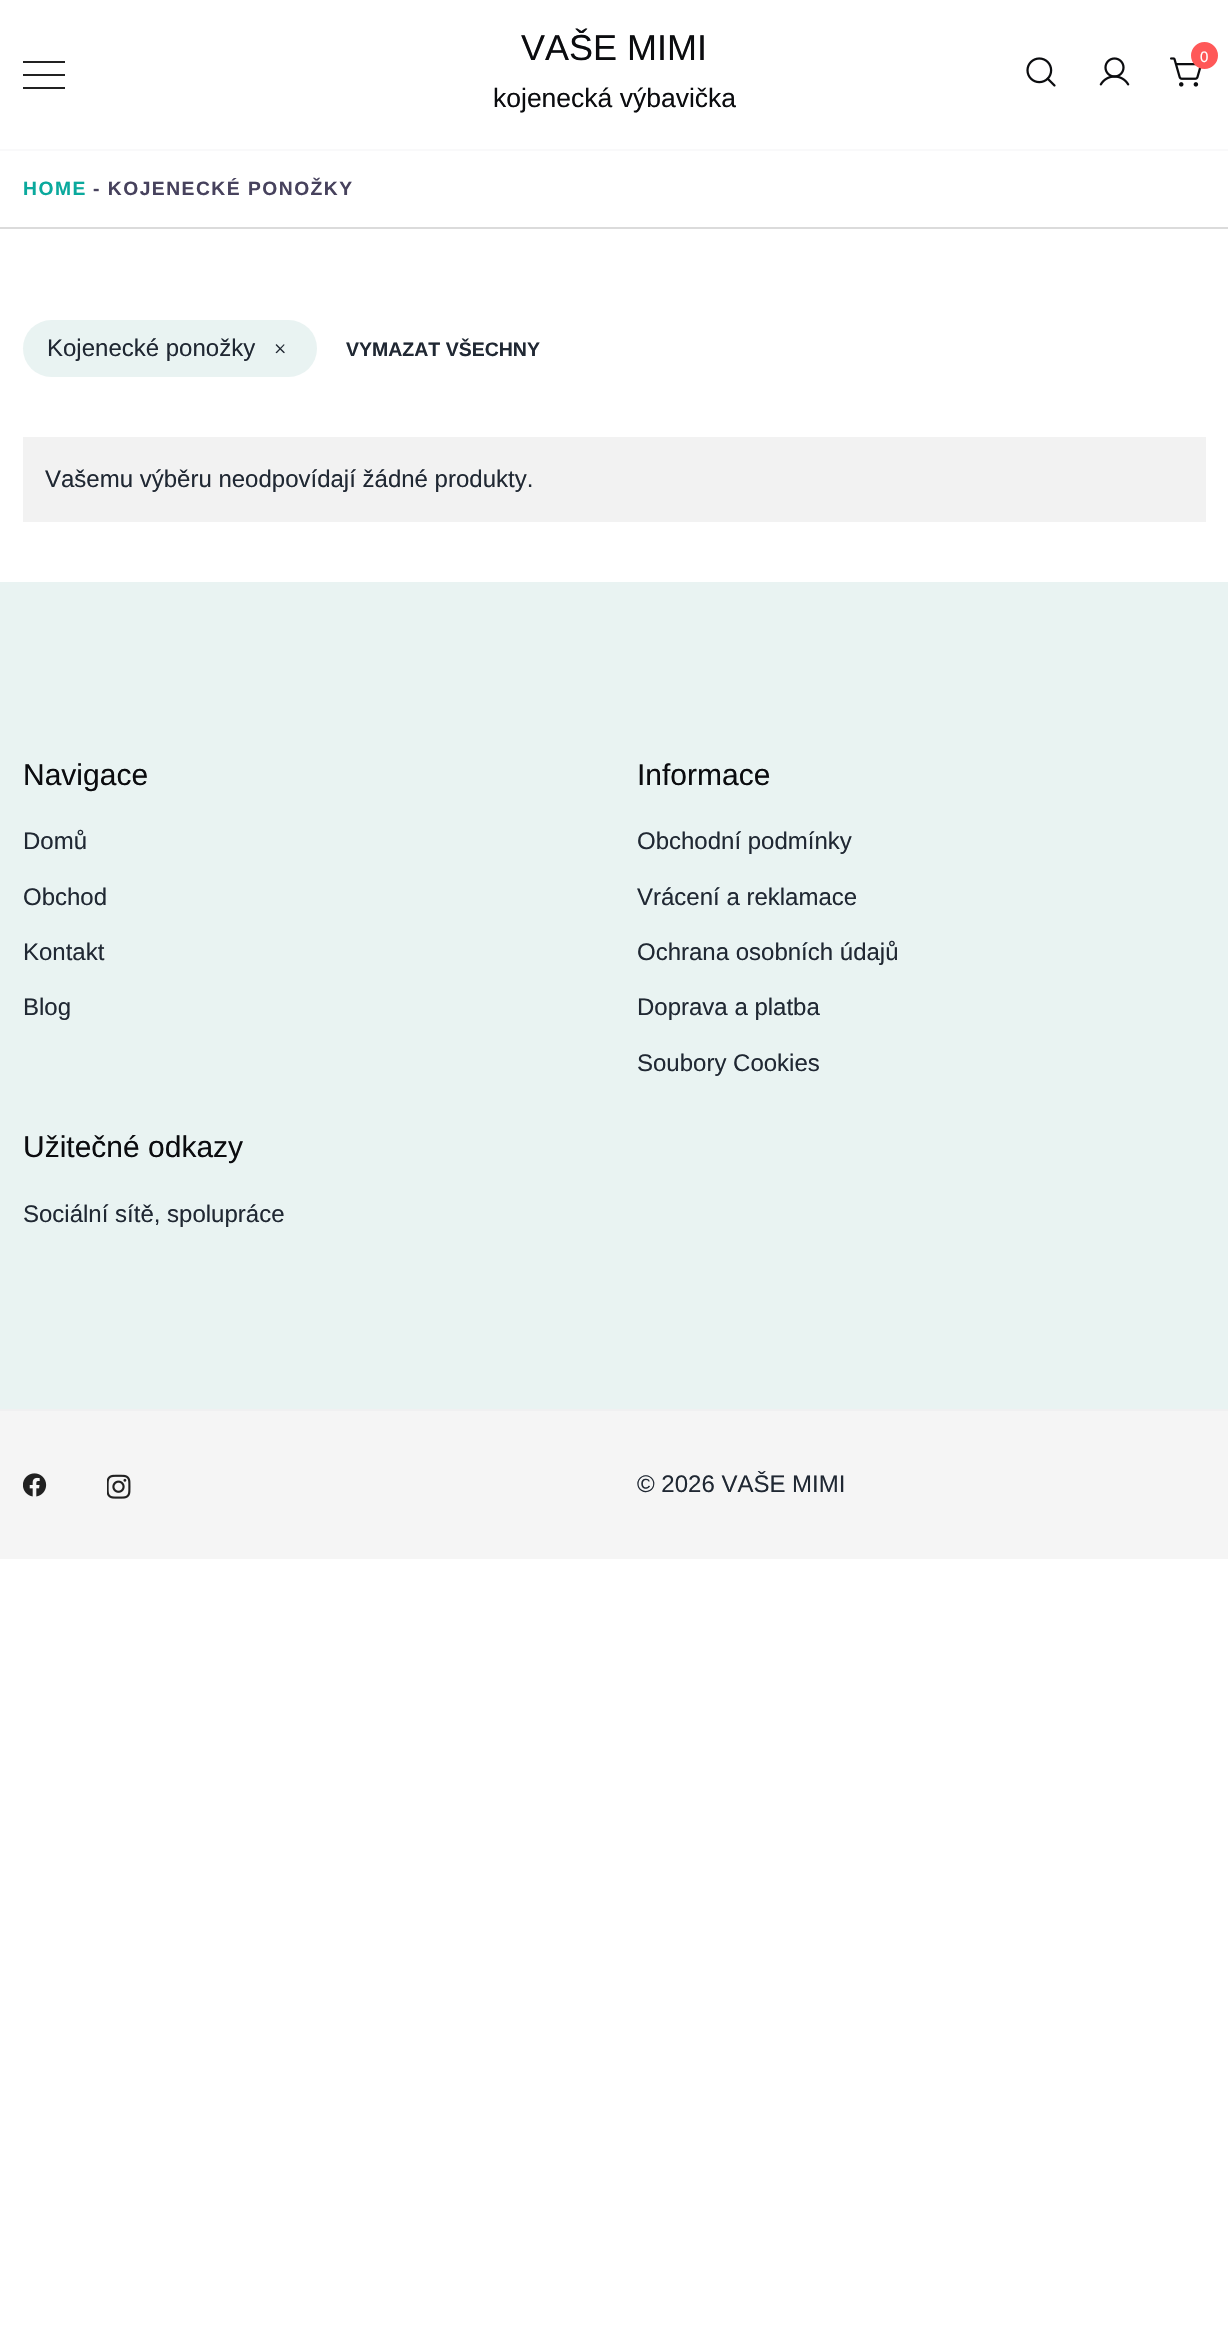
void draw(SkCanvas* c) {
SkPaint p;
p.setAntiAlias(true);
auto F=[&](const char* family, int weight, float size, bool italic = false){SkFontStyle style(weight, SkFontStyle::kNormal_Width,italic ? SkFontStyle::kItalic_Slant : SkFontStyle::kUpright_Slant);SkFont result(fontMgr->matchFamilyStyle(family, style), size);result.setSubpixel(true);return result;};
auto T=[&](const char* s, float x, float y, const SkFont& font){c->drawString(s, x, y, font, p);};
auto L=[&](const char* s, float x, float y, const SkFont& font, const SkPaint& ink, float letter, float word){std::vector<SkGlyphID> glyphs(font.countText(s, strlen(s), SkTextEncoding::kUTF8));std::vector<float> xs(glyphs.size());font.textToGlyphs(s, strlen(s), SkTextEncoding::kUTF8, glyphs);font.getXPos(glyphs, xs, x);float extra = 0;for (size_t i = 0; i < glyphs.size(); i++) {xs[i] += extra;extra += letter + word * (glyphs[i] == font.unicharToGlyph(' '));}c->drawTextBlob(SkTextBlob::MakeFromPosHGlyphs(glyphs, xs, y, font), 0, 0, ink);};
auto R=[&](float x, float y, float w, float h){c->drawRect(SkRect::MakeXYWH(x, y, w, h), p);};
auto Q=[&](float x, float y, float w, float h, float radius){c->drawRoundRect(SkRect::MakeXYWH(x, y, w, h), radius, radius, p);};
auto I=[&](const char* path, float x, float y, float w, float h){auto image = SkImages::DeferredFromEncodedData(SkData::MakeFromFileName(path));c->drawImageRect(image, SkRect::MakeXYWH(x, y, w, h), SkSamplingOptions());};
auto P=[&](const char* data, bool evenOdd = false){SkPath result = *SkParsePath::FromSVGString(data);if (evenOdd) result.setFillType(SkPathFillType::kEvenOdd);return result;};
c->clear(0xffffffff);
p.setColor(0xfff9f9fa);
R(0,149,1228,2);
auto f1 = F("Liberation Sans",400,36);
p.setColor(0xff0b0c0f);
T("VAŠE MIMI",521,60,f1);
auto f2 = F("Liberation Sans",400,26.5);
T("kojenecká výbavička",493,107,f2);
I("1.png",1026,57,30,30);
I("2.png",1099,57,31,29);
I("3.png",1170,57,32,30);
p.setColor(0xffff5858);
c->drawCircle(1204.5,55.5,12.5,p);
p.setStroke(true);
p.setStrokeWidth(2);
c->drawCircle(1204.5,55.5,12.5,p);
auto f3 = F("Liberation Sans",400,15);
p.setStroke(false);
p.setColor(0xffffffff);
T("0",1200,62,f3);
p.setColor(0xff212121);
R(23,61,42,2);
R(23,74,42,2);
R(23,87,42,2);
p.setColor(0xffdbdbdb);
R(0,227,1228,2);
auto f4 = F("Liberation Sans",700,19.25);
p.setColor(0xff0aa99d);
L("HOME",23,195,f4,p,1.5,0);
p.setColor(0xff47425d);
L("- KOJENECKÉ PONOŽKY",93,195,f4,p,1.5,0);
p.setColor(0xffe9f3f2);
Q(23,320,294,57,28.5);
auto f5 = F("Liberation Sans",400,24);
p.setColor(0xff202833);
T("Kojenecké ponožky",47,356,f5);
c->drawPath(P("M277 344.5l7.5 7.5c.5 .5 0 1.5-1 1l-7.5-7.5c-1-.5 .5-1.5 1-1z"),p);
c->drawPath(P("M276 352l7.5-7.5c.5-.5 1 0 1 .5l-7.5 8c-.5 .5-2-.5-1-1z"),p);
auto f6 = F("Liberation Sans",700,19.5);
T("VYMAZAT VŠECHNY",346,356,f6);
p.setColor(0xfff2f2f2);
R(23,437,1183,85);
p.setColor(0xff202833);
T("Vašemu výběru neodpovídají žádné produkty.",45,487,f5);
p.setColor(0xffe9f3f2);
R(0,582,1228,827);
auto f7 = F("Liberation Sans",400,30);
p.setColor(0xff0b0c0f);
T("Navigace",23,785,f7);
p.setColor(0xff202833);
T("Domů",23,849,f5);
T("Obchod",23,905,f5);
T("Kontakt",23,960,f5);
T("Blog",23,1015,f5);
p.setColor(0xff0b0c0f);
T("Informace",637,785,f7);
p.setColor(0xff202833);
T("Obchodní podmínky",637,849,f5);
T("Vrácení a reklamace",637,905,f5);
T("Ochrana osobních údajů",637,960,f5);
T("Doprava a platba",637,1015,f5);
T("Soubory Cookies",637,1071,f5);
p.setColor(0xff0b0c0f);
T("Užitečné odkazy",23,1157,f7);
p.setColor(0xff202833);
T("Sociální sítě, spolupráce",23,1222,f5);
p.setColor(0xfff5f5f5);
R(0,1411,1228,148);
p.setColor(0xfff0f0f1);
R(0,1409,1228,2);
I("4.png",23,1473,24,24);
I("5.png",107,1474,24,25);
p.setColor(0xff202833);
T("© 2026 VAŠE MIMI",637,1492,f5);
}
